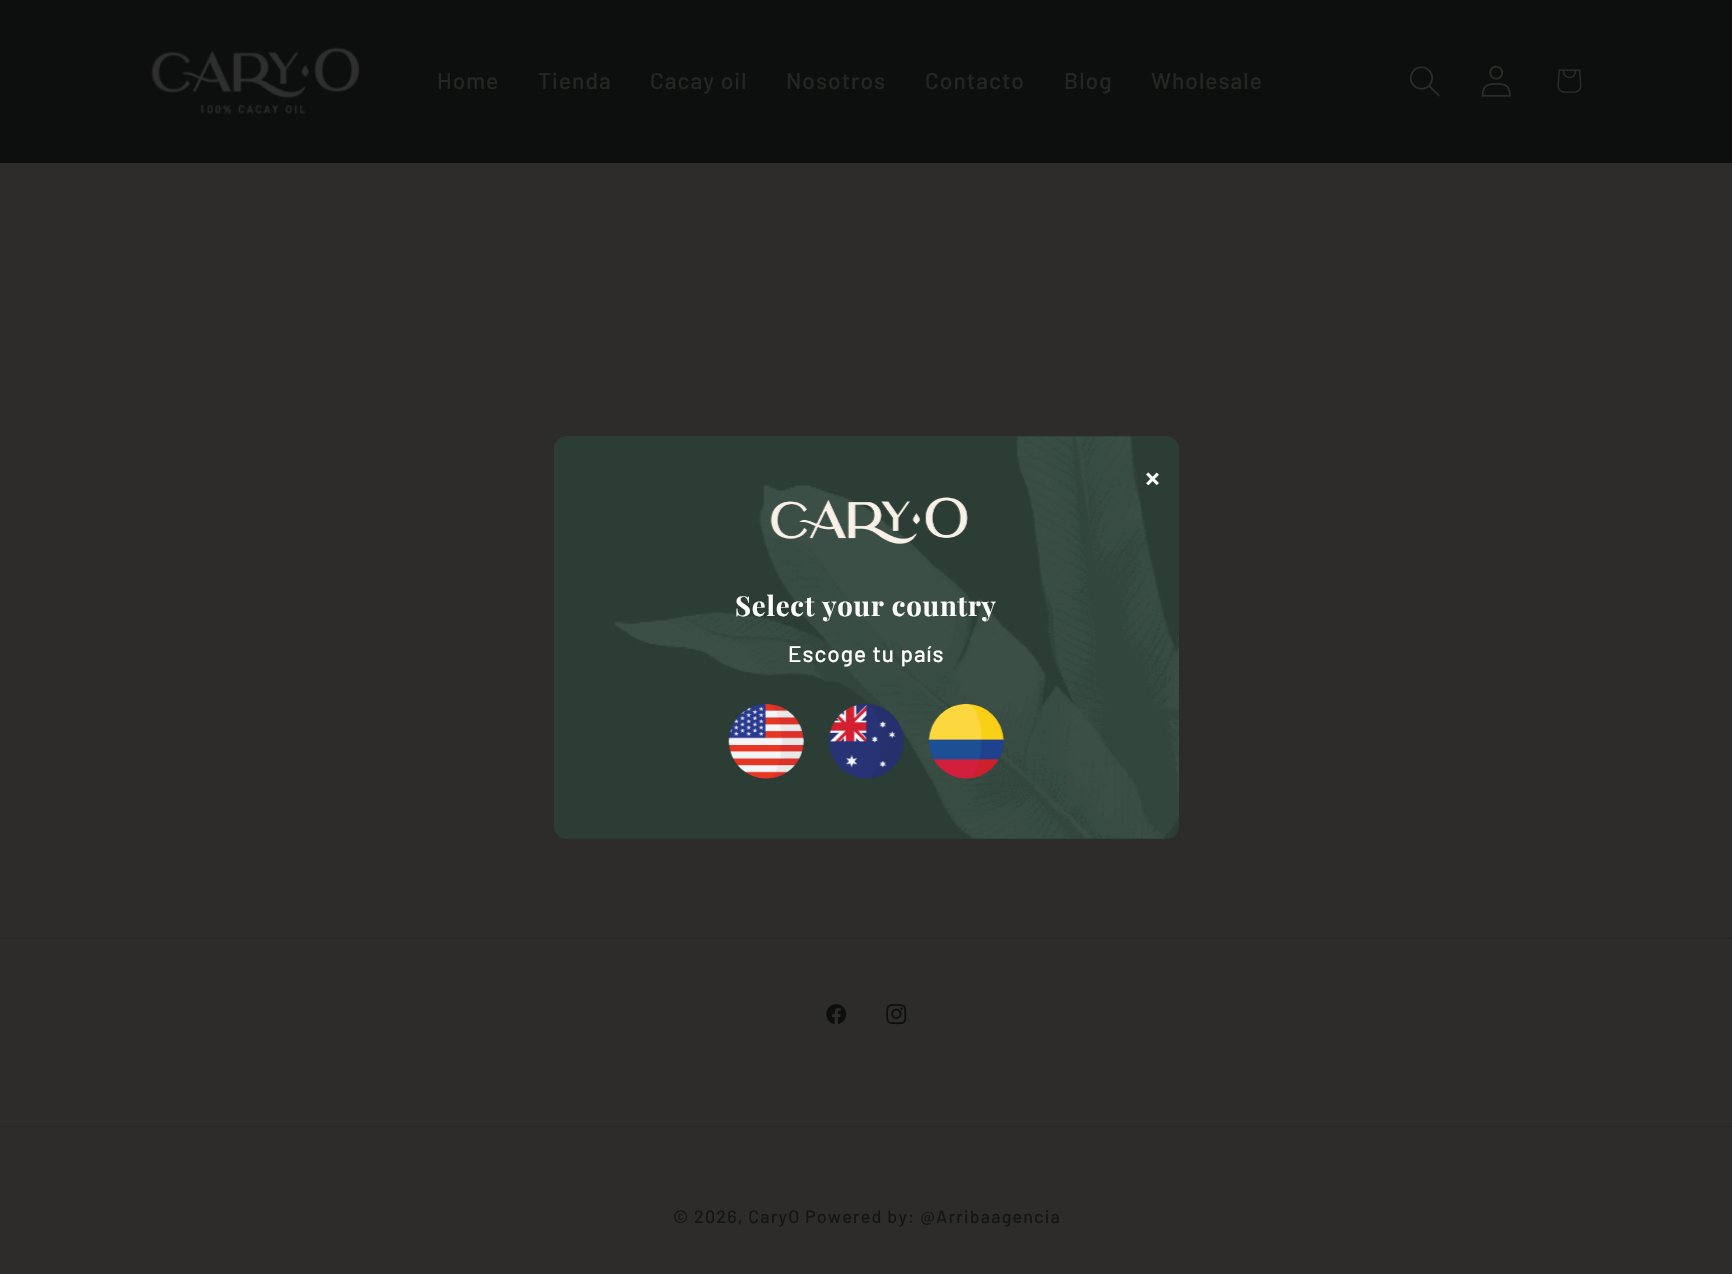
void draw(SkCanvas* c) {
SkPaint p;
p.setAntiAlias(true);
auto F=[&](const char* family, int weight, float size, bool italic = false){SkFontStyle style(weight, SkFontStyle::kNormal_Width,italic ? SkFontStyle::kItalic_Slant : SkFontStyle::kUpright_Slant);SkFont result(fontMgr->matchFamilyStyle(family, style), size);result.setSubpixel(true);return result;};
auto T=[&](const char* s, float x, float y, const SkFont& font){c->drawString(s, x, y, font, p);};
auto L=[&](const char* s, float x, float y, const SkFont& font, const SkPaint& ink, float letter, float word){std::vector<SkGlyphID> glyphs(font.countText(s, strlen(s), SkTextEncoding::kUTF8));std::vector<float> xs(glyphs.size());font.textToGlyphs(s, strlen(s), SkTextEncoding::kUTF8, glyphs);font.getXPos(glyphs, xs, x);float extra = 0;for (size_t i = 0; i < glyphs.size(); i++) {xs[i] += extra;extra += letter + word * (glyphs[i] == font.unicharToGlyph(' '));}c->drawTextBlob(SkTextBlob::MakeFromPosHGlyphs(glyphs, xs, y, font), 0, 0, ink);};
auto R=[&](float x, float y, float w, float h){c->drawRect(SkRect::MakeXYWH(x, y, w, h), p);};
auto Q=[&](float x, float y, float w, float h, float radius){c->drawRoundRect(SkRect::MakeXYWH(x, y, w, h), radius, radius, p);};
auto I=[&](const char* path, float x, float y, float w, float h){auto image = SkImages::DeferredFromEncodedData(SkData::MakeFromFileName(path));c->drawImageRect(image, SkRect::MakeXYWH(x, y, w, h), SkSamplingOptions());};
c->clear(0xff2d2c2a);
p.setColor(0xff0c0f0d);
R(0,0,1732,163);
I("1.png",151,47,209,67);
auto f1 = F("Barlow",500,22.75);
p.setColor(0xff252523);
L("Home",437,89,f1,p,1,0);
L("Tienda",538,89,f1,p,1,0);
L("Cacay oil",650,89,f1,p,1,0);
L("Nosotros",786,89,f1,p,1,0);
L("Contacto",925,89,f1,p,1,0);
L("Blog",1064,89,f1,p,1,0);
L("Wholesale",1151,89,f1,p,1,0);
I("2.png",1409,66,31,31);
I("3.png",1481,65,30,32);
I("4.png",1557,69,25,24);
p.setColor(0xff2c3d35);
Q(554,436,625,403,13);
I("5.png",614,436,565,403);
auto f2 = F("Barlow",500,35);
p.setColor(0xffffffff);
T("×",1145,490,f2);
I("6.png",770,497,198,47);
auto f3 = F("Playfair Display",700,27.5);
L("Select your country",735,616,f3,p,.75,0);
auto f4 = F("Barlow",500,22.5);
L("Escoge tu país",788,662,f4,p,1,0);
I("7.png",728,703,76,76);
I("8.png",828,704,76,75);
I("9.png",928,703,76,76);
p.setColor(0xff2a2927);
R(0,938,1732,1);
I("10.png",826,1004,21,21);
I("11.png",886,1004,21,21);
R(0,1126,1732,1);
auto f5 = F("Barlow",500,17.9);
p.setColor(0xff141614);
L("© 2026, CaryO",673,1223,f5,p,1.15,0);
L("Powered by: @Arribaagencia",805,1223,f5,p,1.15,0);
}
